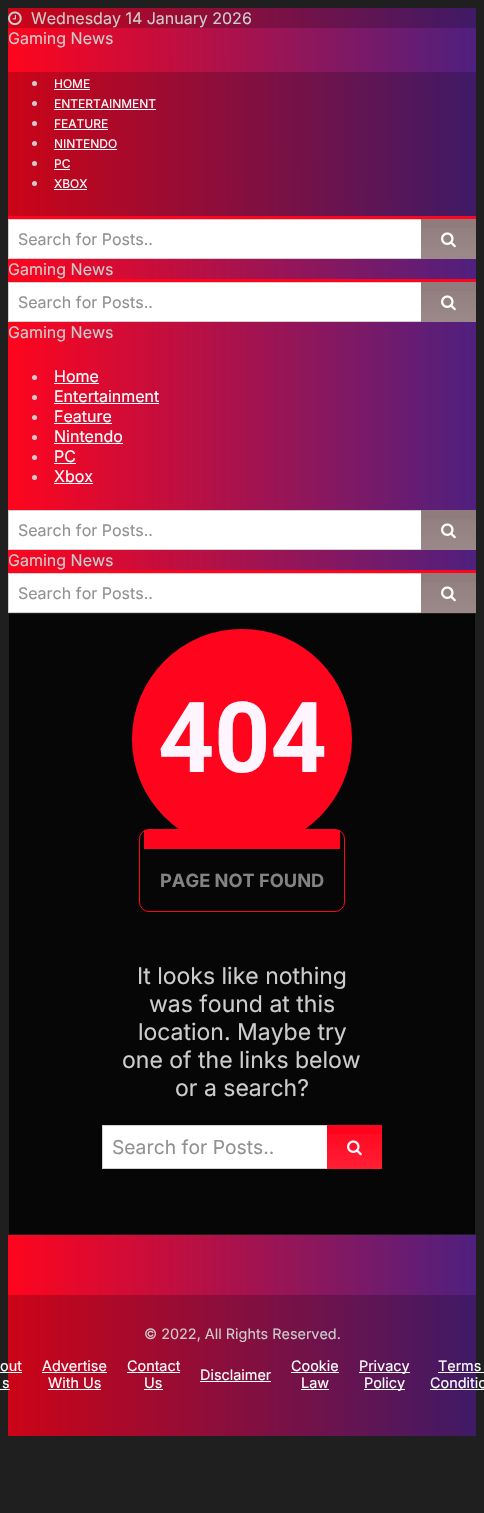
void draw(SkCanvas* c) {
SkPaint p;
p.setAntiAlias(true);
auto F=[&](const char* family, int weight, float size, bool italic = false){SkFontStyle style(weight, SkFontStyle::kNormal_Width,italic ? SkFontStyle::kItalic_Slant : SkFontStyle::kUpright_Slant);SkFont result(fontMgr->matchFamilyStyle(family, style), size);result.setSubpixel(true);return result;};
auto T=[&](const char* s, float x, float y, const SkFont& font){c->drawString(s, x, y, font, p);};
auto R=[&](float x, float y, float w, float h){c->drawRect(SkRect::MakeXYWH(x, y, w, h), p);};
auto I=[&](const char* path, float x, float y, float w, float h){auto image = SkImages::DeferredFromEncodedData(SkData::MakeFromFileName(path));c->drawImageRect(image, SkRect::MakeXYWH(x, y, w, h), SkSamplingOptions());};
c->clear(0xff1f1f1f);
p.setColor(0xff060606);
R(9,614,466,620);
{
const SkColor colors[] = {0xffff051d,0xff4f207f};
const float stops[] = {0,1};
const SkPoint ends[] = {{8,134}, {476,133}};
p.setShader(SkGradientShader::MakeLinear(ends, colors, stops, 2, SkTileMode::kClamp));
p.setAlpha(255);
}
R(8,28,468,44);
{
const SkColor colors[] = {0xffcc0417,0xff3f1a66};
const float stops[] = {0,1};
const SkPoint ends[] = {{8,134}, {476,133}};
p.setShader(SkGradientShader::MakeLinear(ends, colors, stops, 2, SkTileMode::kClamp));
p.setAlpha(255);
}
R(8,72,468,144);
R(8,8,468,20);
I("1.png",8,11,14,15);
auto f1 = F("Inter",400,16);
p.setShader(nullptr);
p.setColor(0xffcccccc);
T("Wednesday 14 January 2026",31,24,f1);
T("Gaming News",8,44,f1);
c->drawCircle(34.5,83.5,2.5,p);
auto f2 = F("Inter",400,12);
p.setColor(0xffffffff);
T("HOME",54,88,f2);
R(54,89,36,1);
p.setColor(0xffcccccc);
c->drawCircle(34.5,103.5,2.5,p);
p.setColor(0xffffffff);
T("ENTERTAINMENT",54,108,f2);
R(54,109,102,1);
p.setColor(0xffcccccc);
c->drawCircle(34.5,123.5,2.5,p);
p.setColor(0xffffffff);
T("FEATURE",54,128,f2);
R(54,129,54,1);
p.setColor(0xffcccccc);
c->drawCircle(34.5,143.5,2.5,p);
p.setColor(0xffffffff);
T("NINTENDO",54,148,f2);
R(54,149,63,1);
p.setColor(0xffcccccc);
c->drawCircle(34.5,163.5,2.5,p);
p.setColor(0xffffffff);
T("PC",54,168,f2);
R(54,169,16,1);
p.setColor(0xffcccccc);
c->drawCircle(34.5,183.5,2.5,p);
p.setColor(0xffffffff);
T("XBOX",54,188,f2);
R(54,189,33,1);
p.setColor(0xffff051d);
R(8,216,468,3);
p.setColor(0xffffffff);
R(9,220,412,38);
p.setStroke(true);
p.setStrokeWidth(1);
p.setColor(0xffd1d1d1);
c->drawRect(SkRect::MakeXYWH(8.5,219.5,467,39),p);
p.setStroke(false);
p.setColor(0xff919191);
T("Search for Posts..",18,245,f1);
p.setColor(0xff907c7c);
R(421,219,55,40);
I("2.png",441,232,15,16);
{
const SkColor colors[] = {0x00ffffff,0x1affffff};
const float stops[] = {0,1};
const SkPoint ends[] = {{449,219}, {449,259}};
p.setShader(SkGradientShader::MakeLinear(ends, colors, stops, 2, SkTileMode::kClamp));
p.setAlpha(255);
}
R(421,228,55,31);
{
const SkColor colors[] = {0xffff051d,0xff4f207f};
const float stops[] = {0,1};
const SkPoint ends[] = {{8,291}, {476,291}};
p.setShader(SkGradientShader::MakeLinear(ends, colors, stops, 2, SkTileMode::kClamp));
p.setAlpha(255);
}
R(8,259,468,20);
p.setShader(nullptr);
p.setColor(0xffcccccc);
T("Gaming News",8,275,f1);
p.setColor(0xffff051d);
R(8,279,468,3);
p.setColor(0xffffffff);
R(9,283,412,38);
p.setStroke(true);
p.setColor(0xffd1d1d1);
c->drawRect(SkRect::MakeXYWH(8.5,282.5,467,39),p);
p.setStroke(false);
p.setColor(0xff919191);
T("Search for Posts..",18,308,f1);
p.setColor(0xff907c7c);
R(421,282,55,40);
I("2.png",441,295,15,16);
{
const SkColor colors[] = {0x00ffffff,0x1affffff};
const float stops[] = {0,1};
const SkPoint ends[] = {{449,282}, {449,322}};
p.setShader(SkGradientShader::MakeLinear(ends, colors, stops, 2, SkTileMode::kClamp));
p.setAlpha(255);
}
R(421,291,55,31);
{
const SkColor colors[] = {0xffff051d,0xff4f207f};
const float stops[] = {0,1};
const SkPoint ends[] = {{8,468}, {476,468}};
p.setShader(SkGradientShader::MakeLinear(ends, colors, stops, 2, SkTileMode::kClamp));
p.setAlpha(255);
}
R(8,550,468,20);
{
const SkColor colors[] = {0xffff051d,0xff4f207f};
const float stops[] = {0,1};
const SkPoint ends[] = {{8,436}, {476,436}};
p.setShader(SkGradientShader::MakeLinear(ends, colors, stops, 2, SkTileMode::kClamp));
p.setAlpha(255);
}
R(8,322,468,188);
p.setShader(nullptr);
p.setColor(0xffcccccc);
T("Gaming News",8,338,f1);
c->drawCircle(34.5,377.5,2.5,p);
p.setColor(0xffffffff);
T("Home",54,382,f1);
R(54,383,45,1);
p.setColor(0xffcccccc);
c->drawCircle(34.5,397.5,2.5,p);
p.setColor(0xffffffff);
T("Entertainment",54,402,f1);
R(54,403,105,1);
p.setColor(0xffcccccc);
c->drawCircle(34.5,417.5,2.5,p);
p.setColor(0xffffffff);
T("Feature",54,422,f1);
R(54,423,58,1);
p.setColor(0xffcccccc);
c->drawCircle(34.5,437.5,2.5,p);
p.setColor(0xffffffff);
T("Nintendo",54,442,f1);
R(54,443,69,1);
p.setColor(0xffcccccc);
c->drawCircle(34.5,457.5,2.5,p);
p.setColor(0xffffffff);
T("PC",54,462,f1);
R(54,463,22,1);
p.setColor(0xffcccccc);
c->drawCircle(34.5,477.5,2.5,p);
p.setColor(0xffffffff);
T("Xbox",54,482,f1);
R(54,483,39,1);
R(9,511,412,38);
p.setStroke(true);
p.setColor(0xffd1d1d1);
c->drawRect(SkRect::MakeXYWH(8.5,510.5,467,39),p);
p.setStroke(false);
p.setColor(0xff919191);
T("Search for Posts..",18,536,f1);
p.setColor(0xff907c7c);
R(421,510,55,40);
I("2.png",441,523,15,16);
{
const SkColor colors[] = {0x00ffffff,0x1affffff};
const float stops[] = {0,1};
const SkPoint ends[] = {{449,510}, {449,550}};
p.setShader(SkGradientShader::MakeLinear(ends, colors, stops, 2, SkTileMode::kClamp));
p.setAlpha(255);
}
R(421,519,55,31);
p.setShader(nullptr);
p.setColor(0xffcccccc);
T("Gaming News",8,566,f1);
p.setColor(0xffff051d);
R(8,570,468,3);
p.setColor(0xffffffff);
R(9,574,412,38);
p.setStroke(true);
p.setColor(0xffd1d1d1);
c->drawRect(SkRect::MakeXYWH(8.5,573.5,467,39),p);
p.setStroke(false);
p.setColor(0xff919191);
T("Search for Posts..",18,599,f1);
p.setColor(0xff907c7c);
R(421,573,55,40);
I("2.png",441,586,15,16);
{
const SkColor colors[] = {0x00ffffff,0x1affffff};
const float stops[] = {0,1};
const SkPoint ends[] = {{449,573}, {449,613}};
p.setShader(SkGradientShader::MakeLinear(ends, colors, stops, 2, SkTileMode::kClamp));
p.setAlpha(255);
}
R(421,582,55,31);
p.setStroke(true);
p.setShader(nullptr);
p.setColor(0xffff051d);
c->drawRoundRect(SkRect::MakeXYWH(139.5,829.5,205,82),9.5,9.5,p);
p.setStroke(false);
R(144,830,196,19);
c->drawCircle(242,739,110,p);
auto f3 = F("Roboto",700,98);
p.setColor(0xfffff5ff);
T("404",158,772,f3);
auto f4 = F("Inter",700,18.25);
p.setColor(0xff838383);
T("PAGE NOT FOUND",160,887,f4);
auto f5 = F("Inter",400,23);
p.setColor(0xffcccccc);
T("It looks like nothing",137,984,f5);
T("was found at this",149,1012,f5);
T("location. Maybe try",138,1040,f5);
T("one of the links below",122,1068,f5);
T("or a search?",175,1096,f5);
p.setColor(0xffffffff);
R(103,1126,224,42);
p.setStroke(true);
p.setColor(0xffd1d1d1);
c->drawRect(SkRect::MakeXYWH(102.5,1125.5,279,43),p);
auto f6 = F("Inter",400,19.25);
p.setStroke(false);
p.setColor(0xff919191);
T("Search for Posts..",112,1154,f6);
p.setColor(0xffff051d);
R(327,1125,55,44);
I("3.png",347,1140,15,16);
{
const SkColor colors[] = {0x00ffffff,0x1affffff};
const float stops[] = {0,1};
const SkPoint ends[] = {{355,1125}, {355,1169}};
p.setShader(SkGradientShader::MakeLinear(ends, colors, stops, 2, SkTileMode::kClamp));
p.setAlpha(255);
}
R(327,1134,55,35);
{
const SkColor colors[] = {0xffff051d,0xff4f207f};
const float stops[] = {0,1};
const SkPoint ends[] = {{8,1336}, {476,1336}};
p.setShader(SkGradientShader::MakeLinear(ends, colors, stops, 2, SkTileMode::kClamp));
p.setAlpha(255);
}
R(8,1235,468,60);
{
const SkColor colors[] = {0xffcc0417,0xff3f1a66};
const float stops[] = {0,1};
const SkPoint ends[] = {{8,1336}, {476,1336}};
p.setShader(SkGradientShader::MakeLinear(ends, colors, stops, 2, SkTileMode::kClamp));
p.setAlpha(255);
}
R(8,1295,468,141);
auto f7 = F("Inter",400,14.4);
p.setShader(nullptr);
p.setColor(0xffcccccc);
T("© 2022, All Rights Reserved.",144,1339,f7);
p.setColor(0xffffffff);
T("out",0,1371,f7);
R(0,1372,22,1);
T("s",2,1388,f7);
R(0,1389,10,1);
T("Advertise",42,1371,f7);
R(42,1372,65,1);
T("With Us",48,1388,f7);
R(48,1389,53,1);
T("Contact",127,1371,f7);
R(127,1372,53,1);
T("Us",144,1388,f7);
R(144,1389,19,1);
T("Disclaimer",200,1380,f7);
R(200,1381,71,1);
T("Cookie",291,1371,f7);
R(291,1372,48,1);
T("Law",301,1388,f7);
R(301,1389,28,1);
R(359,1372,51,1);
T("Privacy",359,1371,f7);
R(364,1389,41,1);
T("Policy",364,1388,f7);
T("Terms",438,1371,f7);
R(438,1372,46,1);
T("Conditio",430,1388,f7);
R(430,1389,54,1);
}
